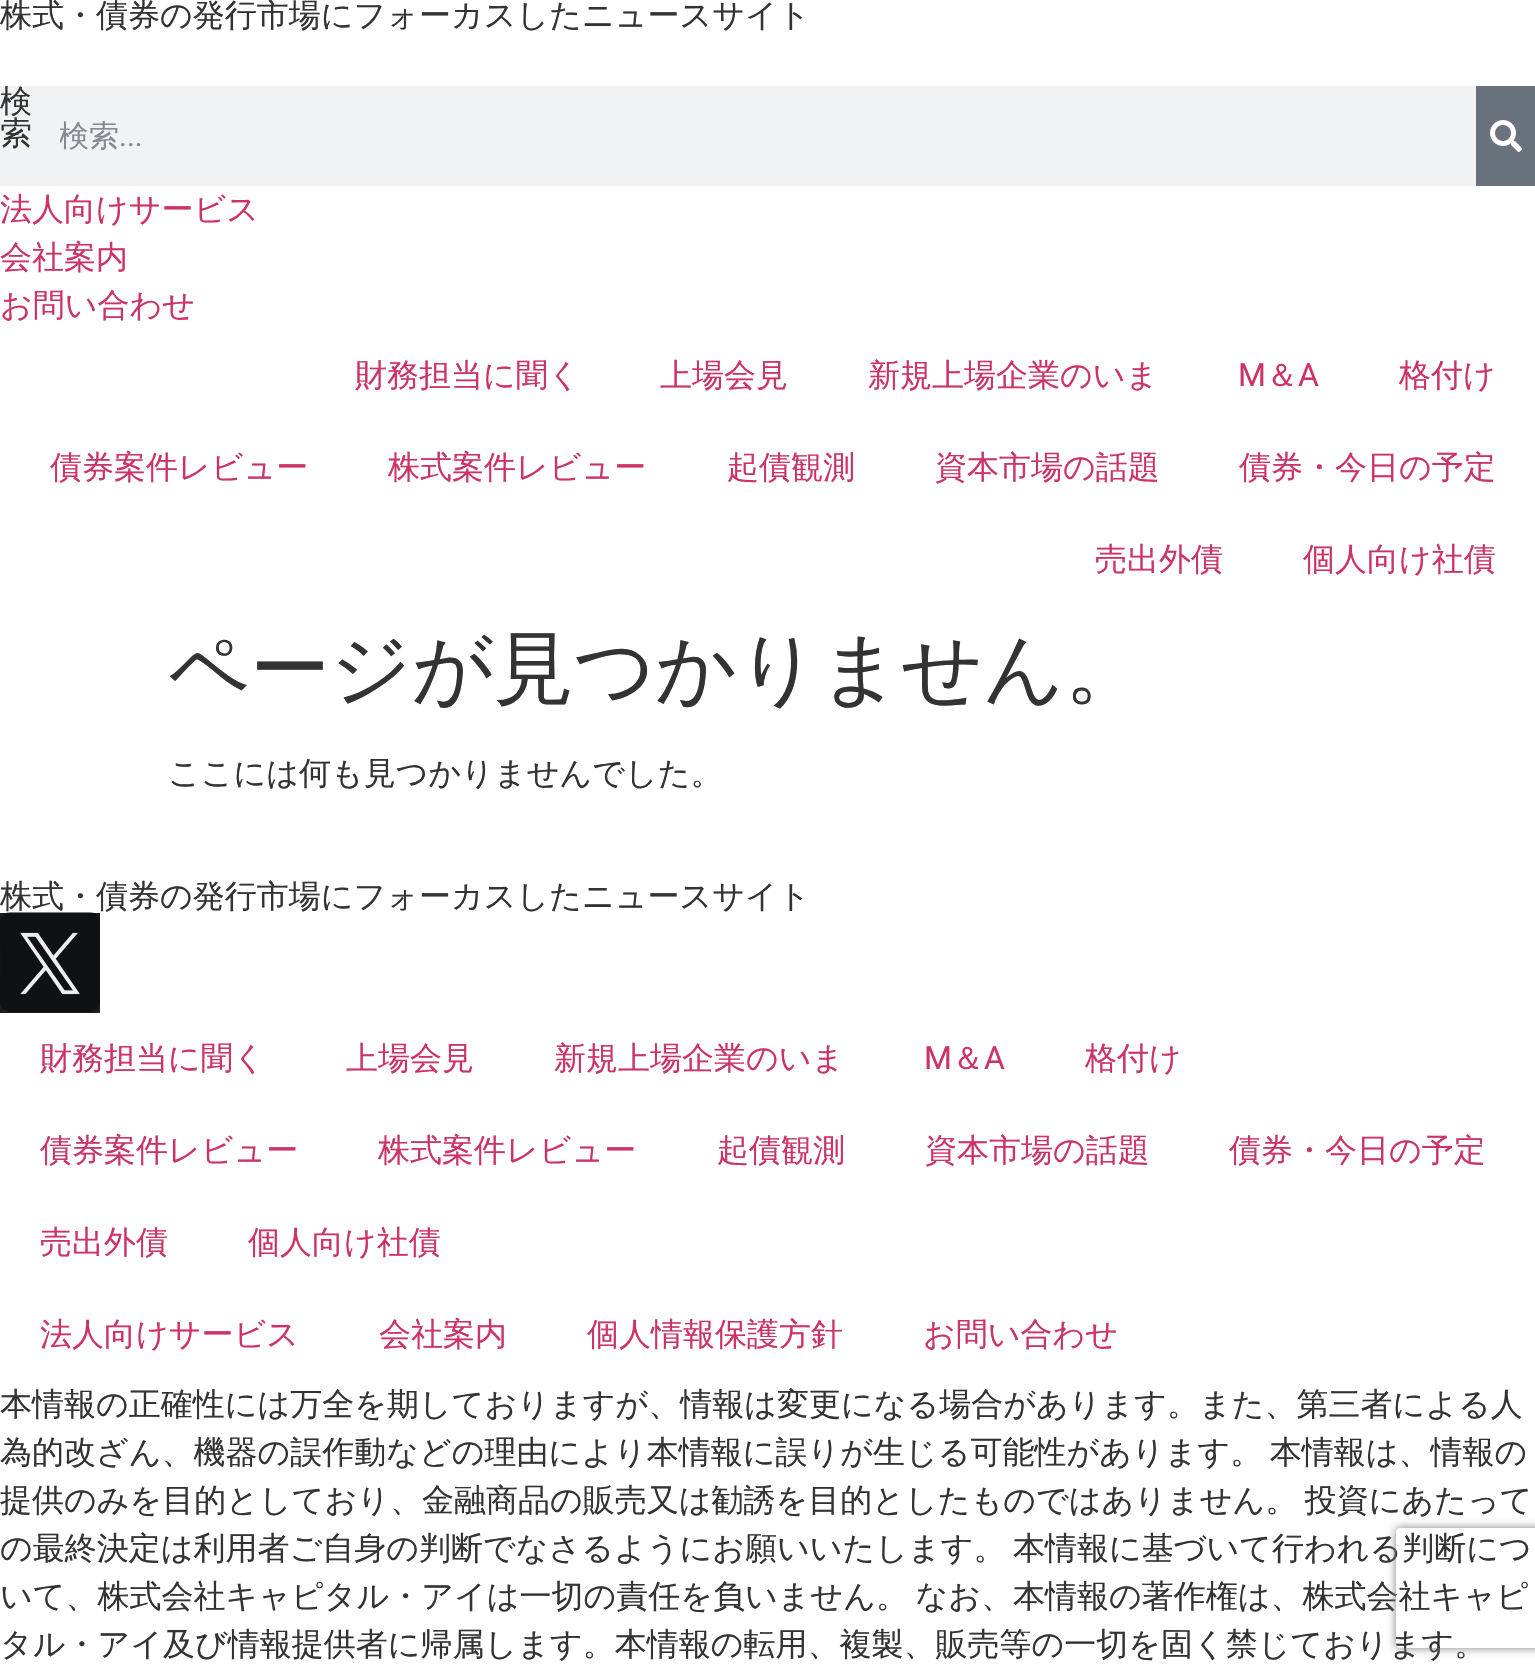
void draw(SkCanvas* c) {
SkPaint p;
p.setAntiAlias(true);
auto F=[&](const char* family, int weight, float size, bool italic = false){SkFontStyle style(weight, SkFontStyle::kNormal_Width,italic ? SkFontStyle::kItalic_Slant : SkFontStyle::kUpright_Slant);SkFont result(fontMgr->matchFamilyStyle(family, style), size);result.setSubpixel(true);return result;};
auto T=[&](const char* s, float x, float y, const SkFont& font){c->drawString(s, x, y, font, p);};
auto L=[&](const char* s, float x, float y, const SkFont& font, const SkPaint& ink, float letter, float word){std::vector<SkGlyphID> glyphs(font.countText(s, strlen(s), SkTextEncoding::kUTF8));std::vector<float> xs(glyphs.size());font.textToGlyphs(s, strlen(s), SkTextEncoding::kUTF8, glyphs);font.getXPos(glyphs, xs, x);float extra = 0;for (size_t i = 0; i < glyphs.size(); i++) {xs[i] += extra;extra += letter + word * (glyphs[i] == font.unicharToGlyph(' '));}c->drawTextBlob(SkTextBlob::MakeFromPosHGlyphs(glyphs, xs, y, font), 0, 0, ink);};
auto R=[&](float x, float y, float w, float h){c->drawRect(SkRect::MakeXYWH(x, y, w, h), p);};
auto Q=[&](float x, float y, float w, float h, float radius){c->drawRoundRect(SkRect::MakeXYWH(x, y, w, h), radius, radius, p);};
auto I=[&](const char* path, float x, float y, float w, float h){auto image = SkImages::DeferredFromEncodedData(SkData::MakeFromFileName(path));c->drawImageRect(image, SkRect::MakeXYWH(x, y, w, h), SkSamplingOptions());};
auto P=[&](const char* data, bool evenOdd = false){SkPath result = *SkParsePath::FromSVGString(data);if (evenOdd) result.setFillType(SkPathFillType::kEvenOdd);return result;};
c->clear(0xffffffff);
auto f1 = F("WenQuanYi Zen Hei",500,32);
p.setColor(0xff333333);
T("株式・債券の発行市場にフォーカスしたニュースサイト",0,26,f1);
p.setColor(0xfff1f2f3);
R(0,86,1476,100);
c->save();
c->clipRect(SkRect::MakeXYWH(0,86,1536,100));
p.setColor(0xff333333);
T("検",0,112,f1);
c->restore();
T("索",0,144,f1);
c->save();
c->clipPath(P("M66 86h1404c3.5 0 6 2.5 6 6v88c0 3.5-2.5 6-6 6h-1404c-3.5 0-6-2.5-6-6v-88c0-3.5 2.5-6 6-6z"),true);
auto f2 = F("WenQuanYi Zen Hei",500,30);
p.setColor(0xff868a8e);
T("検索",59,146,f2);
c->restore();
auto f3 = F("Roboto",400,30);
T("...",119,146,f3);
p.setColor(0xff69727d);
R(1476,86,59,100);
I("1.png",1490,120,32,32);
p.setColor(0xffcc3366);
T("法人向けサービス",0,220,f1);
T("会社案内",0,268,f1);
T("お問い合わせ",0,316,f1);
T("財務担当に聞く",355,386,f1);
T("上場会見",660,386,f1);
T("新規上場企業のいま",868,386,f1);
auto f4 = F("Roboto",400,32);
T("M",1238,386,f4);
T("＆",1266,386,f1);
T("A",1298,386,f4);
T("格付け",1399,386,f1);
T("債券案件レビュー",50,478,f1);
T("株式案件レビュー",388,478,f1);
T("起債観測",727,478,f1);
T("資本市場の話題",935,478,f1);
T("債券・今日の予定",1239,478,f1);
T("売出外債",1095,570,f1);
T("個人向け社債",1303,570,f1);
auto f5 = F("WenQuanYi Zen Hei",500,80);
p.setColor(0xff333333);
T("ページが見つかりません。",168,696,f5);
T("ここには何も見つかりませんでした。",168,784,f1);
T("株式・債券の発行市場にフォーカスしたニュースサイト",0,907,f1);
p.setColor(0xff78808a);
Q(0,912,100,100,10);
I("2.png",0,913,100,100);
p.setColor(0xffcc3366);
T("財務担当に聞く",40,1069,f1);
T("上場会見",346,1069,f1);
T("新規上場企業のいま",554,1069,f1);
T("M",924,1069,f4);
T("＆",952,1069,f1);
T("A",984,1069,f4);
T("格付け",1085,1069,f1);
T("債券案件レビュー",40,1161,f1);
T("株式案件レビュー",378,1161,f1);
T("起債観測",717,1161,f1);
T("資本市場の話題",925,1161,f1);
T("債券・今日の予定",1229,1161,f1);
T("売出外債",40,1253,f1);
T("個人向け社債",248,1253,f1);
T("法人向けサービス",40,1345,f1);
T("会社案内",379,1345,f1);
T("個人情報保護方針",587,1345,f1);
T("お問い合わせ",923,1345,f1);
p.setColor(0xff333333);
T("本情報の正確性には万全を期しておりますが、情報は変更になる場合があります。また、第三者による人",0,1415,f1);
L("為的改ざん、機器の誤作動などの理由により本情報に誤りが生じる可能性があります。 本情報は、情報の",0,1463,f1,p,0,-2);
L("提供のみを目的としており、金融商品の販売又は勧誘を目的としたものではありません。 投資にあたって",0,1511,f1,p,0,-2);
L("の最終決定は利用者ご自身の判断でなさるようにお願いいたします。 本情報に基づいて行われる判断につ",0,1559,f1,p,0,-2);
L("いて、株式会社キャピタル・アイは一切の責任を負いません。 なお、本情報の著作権は、株式会社キャピ",0,1607,f1,p,0,-2);
T("タル・アイ及び情報提供者に帰属します。本情報の転用、複製、販売等の一切を固く禁じております。",0,1655,f1);
c->save();
c->clipPath(P("M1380 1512h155v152h-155zm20 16h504c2 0 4 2 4 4v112c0 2-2 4-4 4h-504c-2 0-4-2-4-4v-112c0-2 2-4 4-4z",true),true);
p.setColor(0xff808080);
p.setMaskFilter(SkMaskFilter::MakeBlur(kNormal_SkBlurStyle, 5));
c->drawRoundRect(SkRect::MakeXYWH(1396,1528,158,120),4,4,p);
p.setMaskFilter(nullptr);
c->restore();
}
